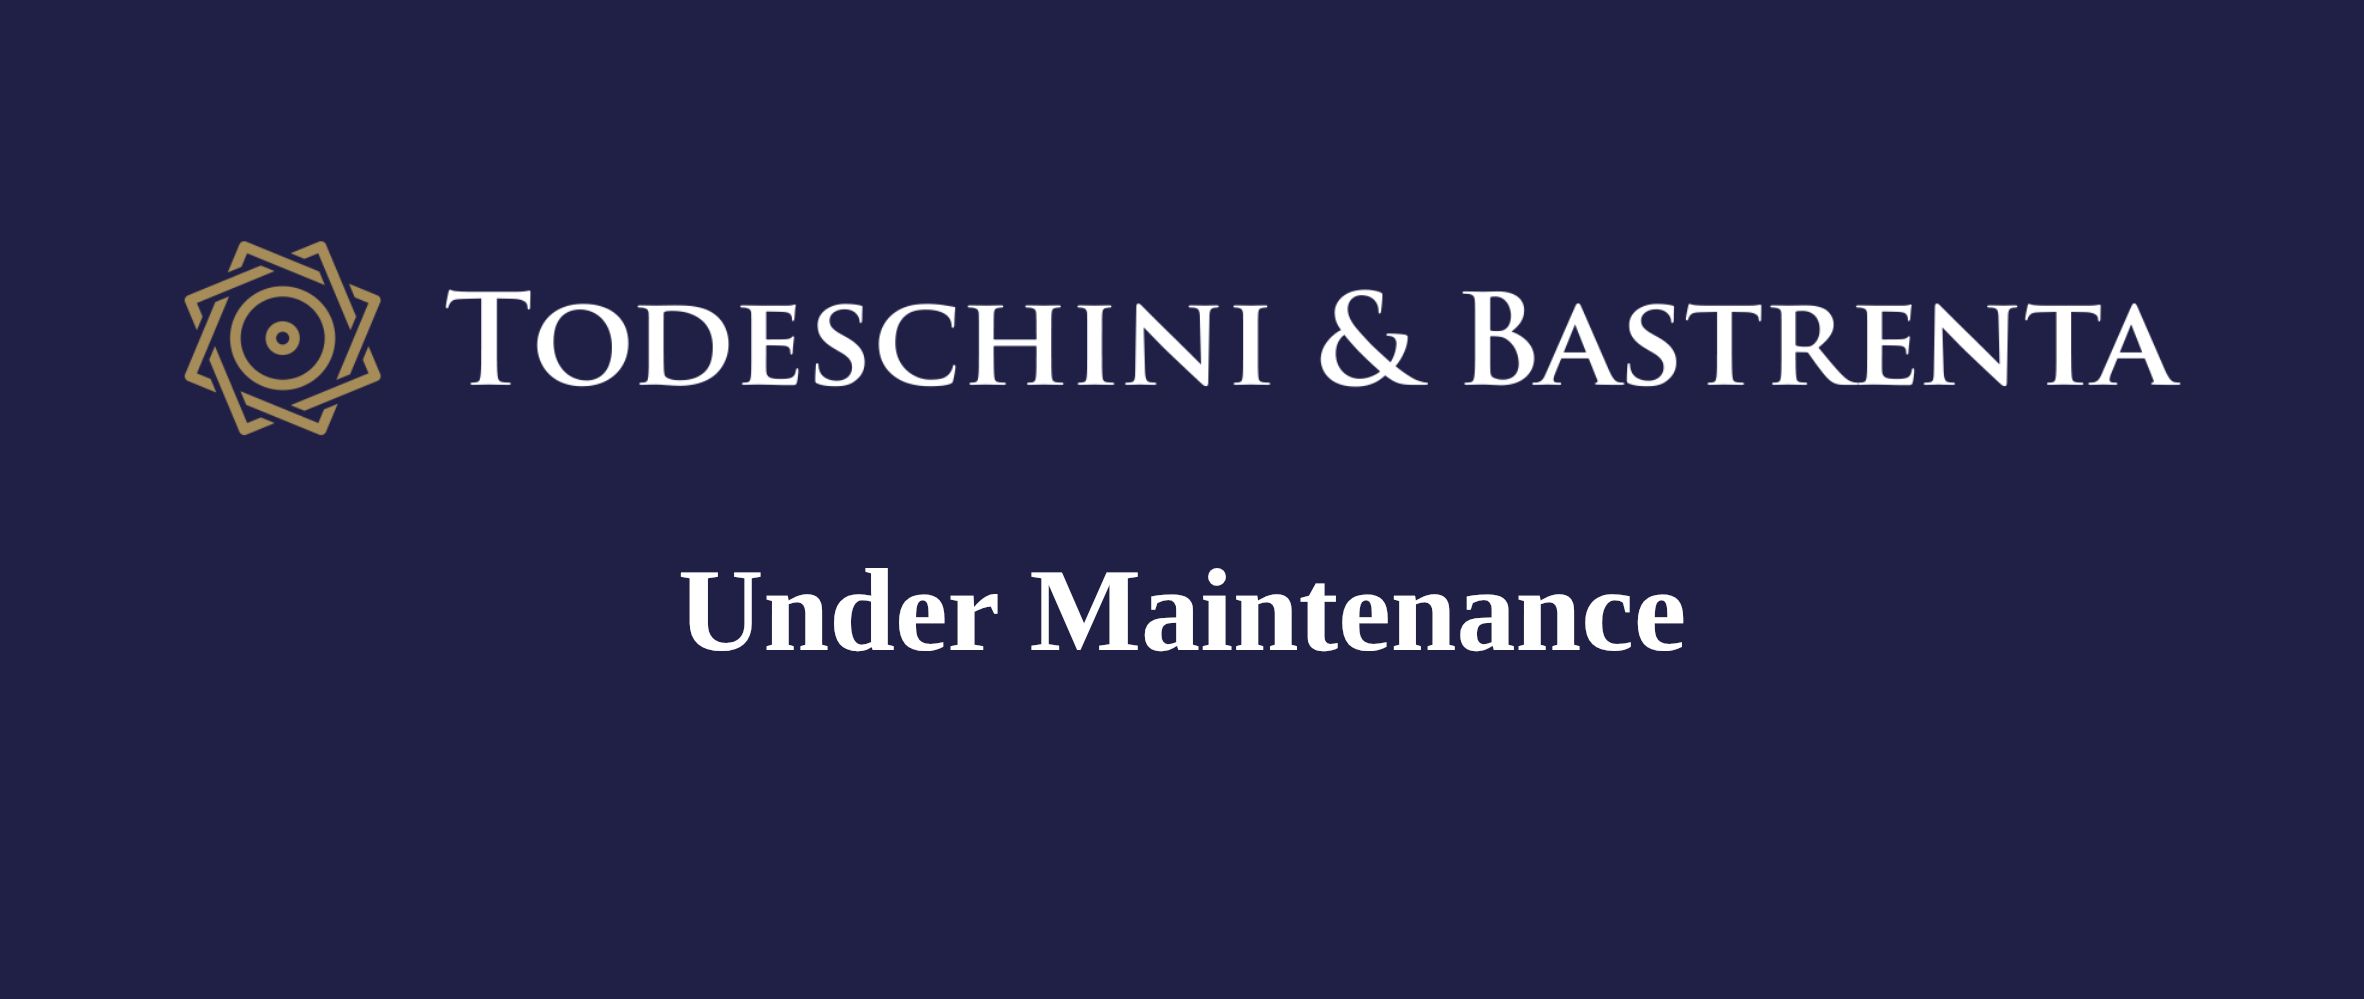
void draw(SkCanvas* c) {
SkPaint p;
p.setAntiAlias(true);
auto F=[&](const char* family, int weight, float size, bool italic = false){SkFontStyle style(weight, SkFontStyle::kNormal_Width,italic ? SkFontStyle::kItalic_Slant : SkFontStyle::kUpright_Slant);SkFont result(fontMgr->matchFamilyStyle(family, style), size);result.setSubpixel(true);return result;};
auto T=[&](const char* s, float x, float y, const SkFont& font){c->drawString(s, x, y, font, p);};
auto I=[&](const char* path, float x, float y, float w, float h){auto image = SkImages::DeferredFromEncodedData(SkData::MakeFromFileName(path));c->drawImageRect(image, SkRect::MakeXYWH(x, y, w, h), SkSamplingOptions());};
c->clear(0xff201f45);
I("1.png",184,241,1997,195);
auto f1 = F("Liberation Serif",700,118.25);
p.setColor(0xffffffff);
T("Under Maintenance",678,650,f1);
}
